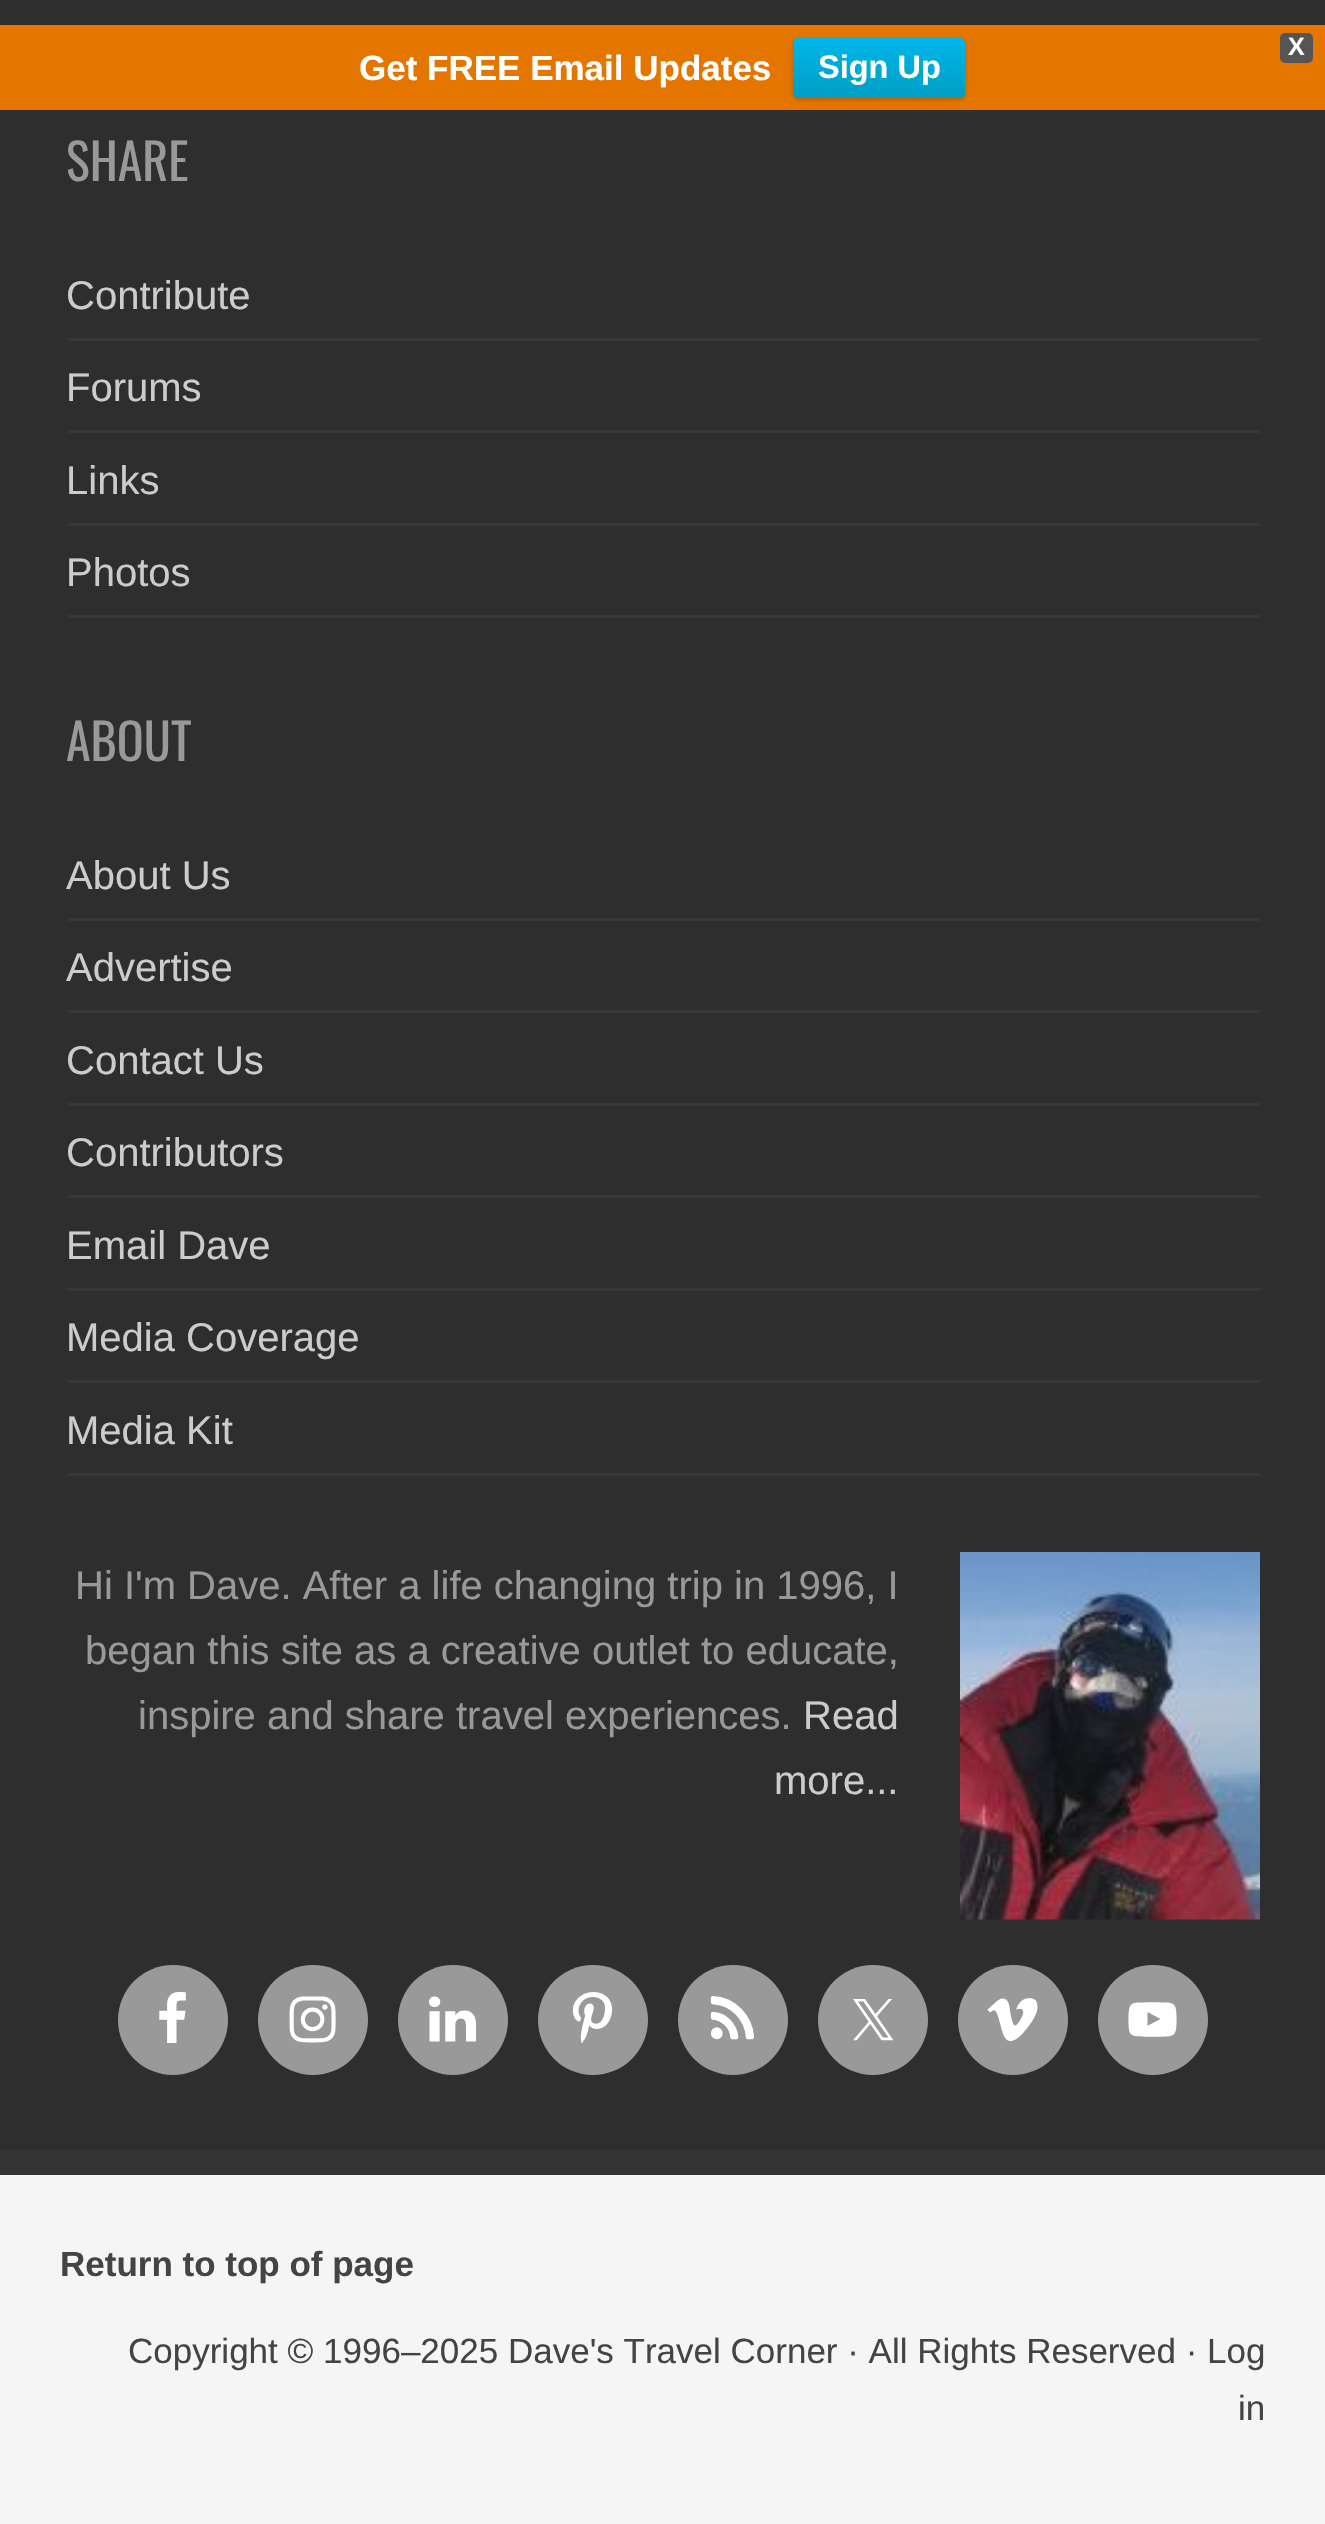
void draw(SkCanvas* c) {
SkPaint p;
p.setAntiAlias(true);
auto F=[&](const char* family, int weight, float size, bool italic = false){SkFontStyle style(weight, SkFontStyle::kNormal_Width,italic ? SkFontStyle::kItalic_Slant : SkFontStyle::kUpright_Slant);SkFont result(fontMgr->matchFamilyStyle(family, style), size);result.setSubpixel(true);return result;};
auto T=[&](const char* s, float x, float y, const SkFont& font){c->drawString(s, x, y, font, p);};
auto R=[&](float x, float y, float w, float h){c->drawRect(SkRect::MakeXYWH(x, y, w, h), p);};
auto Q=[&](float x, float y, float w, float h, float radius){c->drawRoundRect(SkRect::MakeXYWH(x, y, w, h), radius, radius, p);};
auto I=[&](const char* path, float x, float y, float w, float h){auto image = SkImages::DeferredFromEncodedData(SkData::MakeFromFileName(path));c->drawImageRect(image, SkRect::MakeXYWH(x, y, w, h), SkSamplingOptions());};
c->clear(0xfff5f5f5);
p.setColor(0xff2e2e2e);
R(0,0,1325,2150);
p.setColor(0xffe47600);
R(0,25,1325,85);
p.setColor(0xff555555);
c->drawRoundRect(SkRect::MakeXYWH(1281.5,34.5,30,27),3.5,3.5,p);
p.setStroke(true);
p.setStrokeWidth(3);
c->drawRoundRect(SkRect::MakeXYWH(1281.5,34.5,30,27),3.5,3.5,p);
auto f1 = F("Liberation Sans",700,25);
p.setStroke(false);
p.setColor(0xffffffff);
T("X",1288,55,f1);
auto f2 = F("Liberation Sans",700,35);
T("Get FREE Email Updates",359,80,f2);
p.setColor(0x33000000);
p.setMaskFilter(SkMaskFilter::MakeBlur(kNormal_SkBlurStyle, 2.5));
c->drawRoundRect(SkRect::MakeXYWH(793,40,172,60),5,5,p);
p.setMaskFilter(nullptr);
{
const SkColor colors[] = {0xff00b7ea,0xff009ec3};
const float stops[] = {0,1};
const SkPoint ends[] = {{879,37}, {879,98}};
p.setShader(SkGradientShader::MakeLinear(ends, colors, stops, 2, SkTileMode::kClamp));
p.setAlpha(255);
}
Q(793,38,172,60,5);
auto f3 = F("Liberation Sans",700,32.5);
p.setShader(nullptr);
p.setColor(0xffffffff);
T("Sign Up",818,78,f3);
p.setColor(0xff343434);
R(0,2150,1325,25);
auto f4 = F("Oswald",400,50);
p.setColor(0xff999999);
T("SHARE",66,181,f4);
p.setColor(0xff373737);
R(68,338,1192,3);
auto f5 = F("Liberation Sans",400,40);
p.setColor(0xffcccccc);
T("Contribute",66,309,f5);
p.setColor(0xff373737);
R(68,430,1192,3);
p.setColor(0xffcccccc);
T("Forums",66,401,f5);
p.setColor(0xff373737);
R(68,523,1192,3);
p.setColor(0xffcccccc);
T("Links",66,494,f5);
p.setColor(0xff373737);
R(68,615,1192,3);
p.setColor(0xffcccccc);
T("Photos",66,586,f5);
p.setColor(0xff999999);
T("ABOUT",66,761,f4);
p.setColor(0xff373737);
R(68,918,1192,3);
p.setColor(0xffcccccc);
T("About Us",66,889,f5);
p.setColor(0xff373737);
R(68,1010,1192,3);
p.setColor(0xffcccccc);
T("Advertise",66,981,f5);
p.setColor(0xff373737);
R(68,1103,1192,3);
p.setColor(0xffcccccc);
T("Contact Us",66,1074,f5);
p.setColor(0xff373737);
R(68,1195,1192,3);
p.setColor(0xffcccccc);
T("Contributors",66,1166,f5);
p.setColor(0xff373737);
R(68,1288,1192,3);
p.setColor(0xffcccccc);
T("Email Dave",66,1259,f5);
p.setColor(0xff373737);
R(68,1380,1192,3);
p.setColor(0xffcccccc);
T("Media Coverage",66,1351,f5);
p.setColor(0xff373737);
R(68,1473,1192,3);
p.setColor(0xffcccccc);
T("Media Kit",66,1444,f5);
p.setColor(0xff999999);
T("Hi I'm Dave. After a life changing trip in 1996, I",75,1599,f5);
T("began this site as a creative outlet to educate,",85,1664,f5);
T("inspire and share travel experiences.",138,1729,f5);
p.setColor(0xffcccccc);
T("Read",803,1729,f5);
T("more...",774,1794,f5);
I("1.png",960,1552,300,368);
p.setColor(0xff999999);
c->drawCircle(173,2020,55,p);
I("2.png",159,1992,27,51);
c->drawCircle(313,2020,55,p);
I("3.png",289,1996,47,47);
c->drawCircle(453,2020,55,p);
I("4.png",429,1996,48,46);
c->drawCircle(593,2020,55,p);
I("5.png",572,1992,41,51);
c->drawCircle(733,2020,55,p);
I("6.png",710,1996,44,44);
c->drawCircle(873,2020,55,p);
I("7.png",853,1999,41,42);
c->drawCircle(1013,2020,55,p);
I("8.png",987,1998,51,43);
c->drawCircle(1153,2020,55,p);
I("9.png",1128,2002,49,35);
p.setColor(0xff444444);
T("Return to top of page",60,2276,f2);
auto f6 = F("Liberation Sans",400,35);
T("Copyright © 1996–2025 Dave's Travel Corner · All Rights Reserved · Log",128,2363,f6);
T("in",1238,2420,f6);
}
